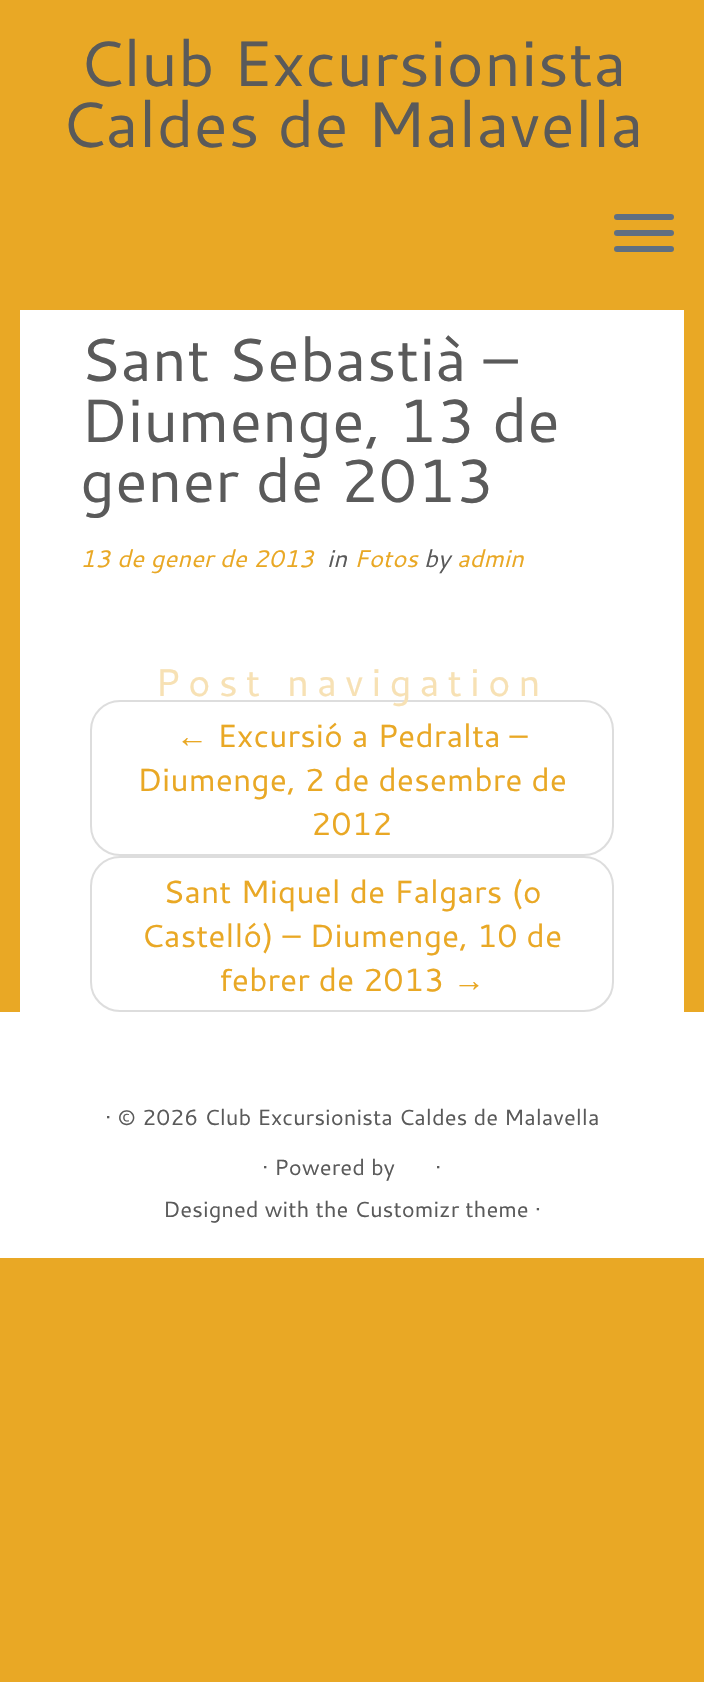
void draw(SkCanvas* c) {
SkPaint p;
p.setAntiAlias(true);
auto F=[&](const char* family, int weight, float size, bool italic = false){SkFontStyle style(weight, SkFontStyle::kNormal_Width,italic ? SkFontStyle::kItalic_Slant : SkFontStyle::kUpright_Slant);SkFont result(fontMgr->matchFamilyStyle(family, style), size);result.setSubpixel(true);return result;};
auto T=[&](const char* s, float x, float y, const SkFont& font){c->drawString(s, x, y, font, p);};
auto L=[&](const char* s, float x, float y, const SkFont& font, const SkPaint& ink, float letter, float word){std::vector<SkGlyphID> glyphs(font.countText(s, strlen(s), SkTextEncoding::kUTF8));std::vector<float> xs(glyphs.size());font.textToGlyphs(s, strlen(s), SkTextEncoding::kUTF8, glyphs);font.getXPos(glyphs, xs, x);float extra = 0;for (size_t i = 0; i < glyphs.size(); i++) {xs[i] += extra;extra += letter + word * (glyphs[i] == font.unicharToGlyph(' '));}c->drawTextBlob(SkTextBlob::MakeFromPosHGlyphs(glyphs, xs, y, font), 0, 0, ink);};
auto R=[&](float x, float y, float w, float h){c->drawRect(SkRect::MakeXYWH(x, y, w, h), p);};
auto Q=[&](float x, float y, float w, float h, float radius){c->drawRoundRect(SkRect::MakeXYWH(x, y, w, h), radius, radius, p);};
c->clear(0xffe9a825);
auto f1 = F("Cantarell",400,64);
p.setColor(0xff5a5a5a);
T("Club Excursionista",78,86,f1);
T("Caldes de Malavella",60,147,f1);
p.setColor(0xff5f6f81);
Q(614,214,60,6,3);
Q(614,230,60,6,3);
Q(614,246,60,6,3);
p.setColor(0xffffffff);
R(20,310,664,702);
auto f2 = F("Cantarell",400,60.75);
p.setColor(0xff5a5a5a);
T("Sant Sebastià –",80,381,f2);
T("Diumenge, 13 de",80,442,f2);
T("gener de 2013",80,502,f2);
auto f3 = F("Cantarell",400,24,true);
p.setColor(0xffe9a825);
T("13 de gener de 2013",80,567,f3);
p.setColor(0xff5a5a5a);
T("in",327,567,f3);
p.setColor(0xffe9a825);
T("Fotos",354,567,f3);
p.setColor(0xff5a5a5a);
T("by",424,567,f3);
p.setColor(0xffe9a825);
T("admin",457,567,f3);
p.setStroke(true);
p.setStrokeWidth(2);
p.setColor(0xffdddddd);
c->drawRoundRect(SkRect::MakeXYWH(91,701,522,154),29,29,p);
auto f4 = F("Cantarell",400,38.4);
p.setStroke(false);
p.setColor(0xfff7e1b4);
L("Post navigation",155,696,f4,p,8,0);
auto f5 = F("Liberation Serif",400,32);
p.setColor(0xffe9a825);
T("←",176,747,f5);
auto f6 = F("Cantarell",400,32);
T("Excursió a Pedralta –",217,747,f6);
T("Diumenge, 2 de desembre de",137,791,f6);
T("2012",311,835,f6);
p.setStroke(true);
p.setColor(0xffdddddd);
c->drawRoundRect(SkRect::MakeXYWH(91,857,522,154),29,29,p);
p.setStroke(false);
p.setColor(0xffe9a825);
T("Sant Miquel de Falgars (o",163,903,f6);
T("Castelló) – Diumenge, 10 de",141,947,f6);
T("febrer de 2013",219,991,f6);
T("→",453,991,f5);
p.setColor(0xffffffff);
R(0,1012,704,246);
auto f7 = F("Cantarell",400,22);
p.setColor(0xff5a5a5a);
T("· © 2026 Club Excursionista Caldes de Malavella",105,1125,f7);
T("· Powered by",262,1175,f7);
T("·",435,1175,f7);
T("Designed with the Customizr theme ·",163,1217,f7);
}
